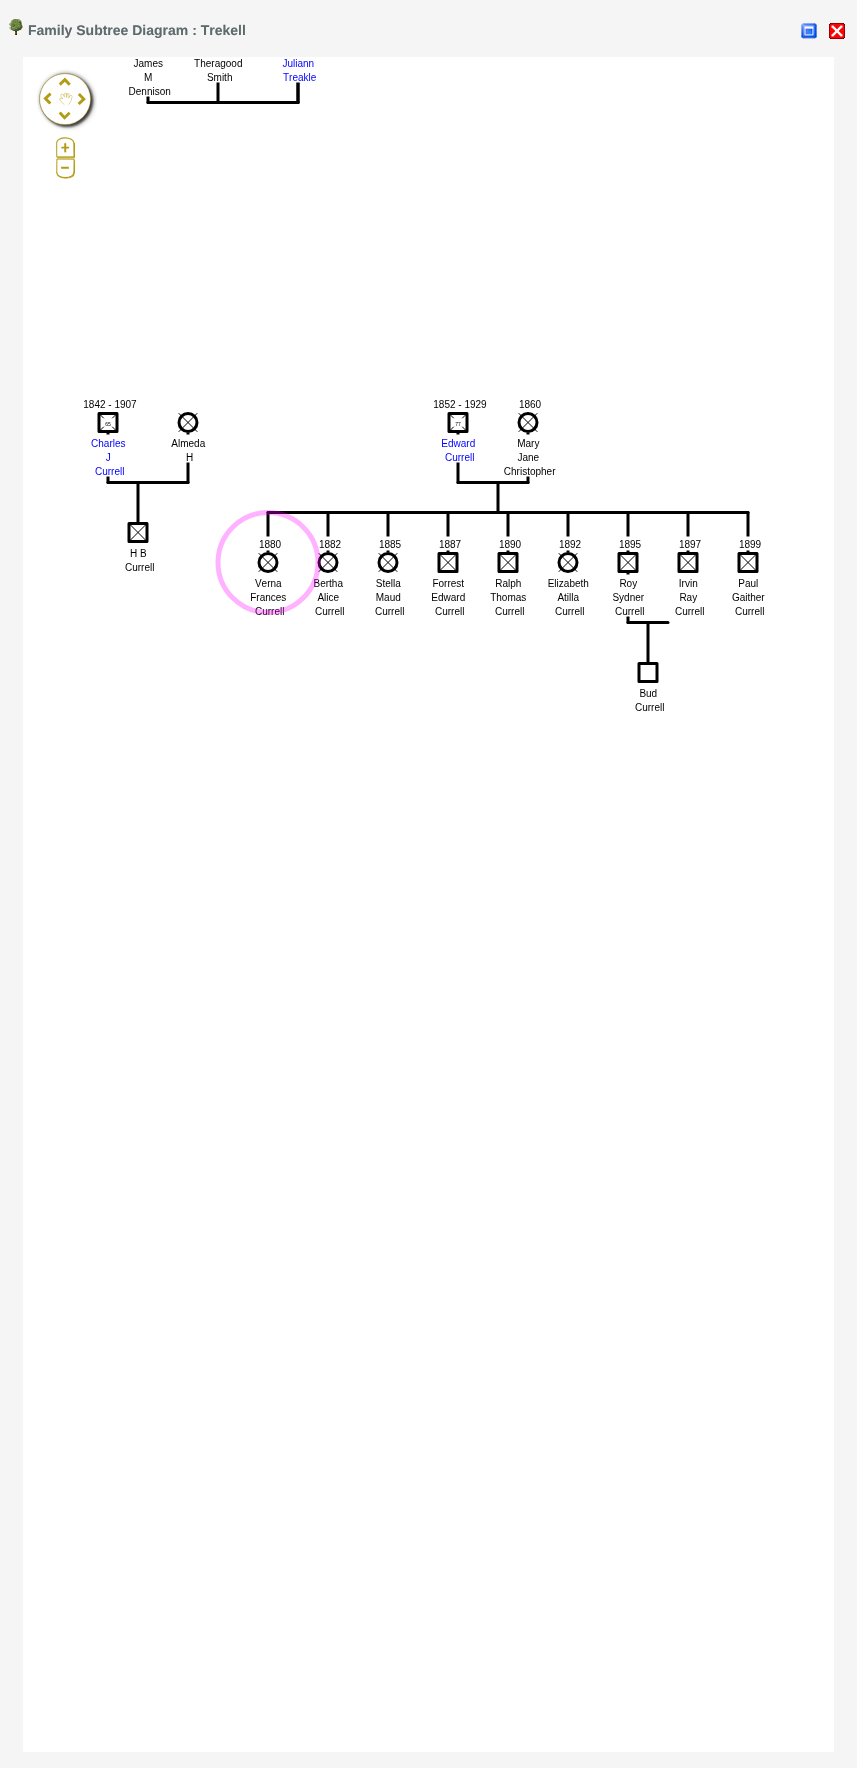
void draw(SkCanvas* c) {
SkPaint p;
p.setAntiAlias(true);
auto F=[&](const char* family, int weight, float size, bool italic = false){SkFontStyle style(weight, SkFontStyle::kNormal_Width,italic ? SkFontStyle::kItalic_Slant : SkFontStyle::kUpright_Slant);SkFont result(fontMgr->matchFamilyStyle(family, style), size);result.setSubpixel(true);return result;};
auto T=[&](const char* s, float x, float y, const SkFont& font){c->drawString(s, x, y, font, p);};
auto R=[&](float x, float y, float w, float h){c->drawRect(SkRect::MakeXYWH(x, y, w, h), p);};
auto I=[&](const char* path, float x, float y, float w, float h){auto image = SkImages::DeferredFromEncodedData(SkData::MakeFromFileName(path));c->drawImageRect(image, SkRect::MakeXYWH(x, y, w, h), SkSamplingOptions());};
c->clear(0xfff5f5f5);
I("1.png",9,19,14,16);
auto f1 = F("Liberation Sans",700,14);
p.setColor(0xff5d6b6c);
T("Family Subtree Diagram : Trekell",28,35,f1);
I("2.png",801,23,16,16);
I("3.png",829,23,16,16);
p.setColor(0xffffffff);
R(23,57,811,1695);
I("4.png",37,59,728,652);
}
